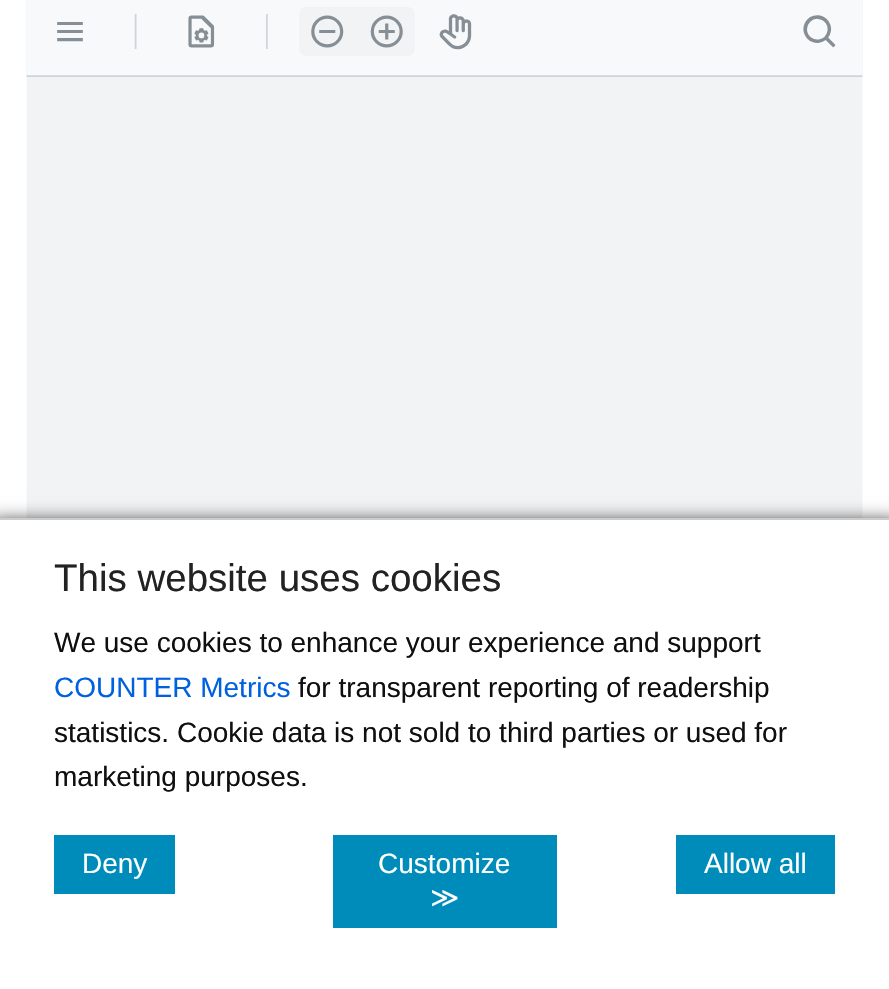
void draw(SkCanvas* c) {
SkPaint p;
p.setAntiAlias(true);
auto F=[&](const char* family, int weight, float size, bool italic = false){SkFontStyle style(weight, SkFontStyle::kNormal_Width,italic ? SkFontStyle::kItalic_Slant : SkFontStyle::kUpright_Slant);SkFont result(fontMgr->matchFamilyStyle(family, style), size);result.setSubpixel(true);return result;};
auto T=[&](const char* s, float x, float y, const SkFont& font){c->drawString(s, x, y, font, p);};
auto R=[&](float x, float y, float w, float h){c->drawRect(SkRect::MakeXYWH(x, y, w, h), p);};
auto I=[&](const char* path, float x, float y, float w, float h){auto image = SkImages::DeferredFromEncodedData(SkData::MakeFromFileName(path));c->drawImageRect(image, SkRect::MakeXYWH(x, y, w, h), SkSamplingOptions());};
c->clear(0xffffffff);
I("1.png",26,0,837,518);
p.setColor(0xff000000);
p.setMaskFilter(SkMaskFilter::MakeBlur(kNormal_SkBlurStyle, 9.5));
c->drawRect(SkRect::MakeXYWH(-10,523,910,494),p);
p.setMaskFilter(nullptr);
p.setColor(0xffffffff);
R(0,520,889,469);
p.setColor(0xffcccccc);
R(0,518,889,2);
auto f1 = F("Liberation Sans",400,38.5);
p.setColor(0xff222222);
T("This website uses cookies",54,591,f1);
auto f2 = F("Liberation Sans",400,28);
p.setColor(0xff0f0f0f);
T("We use cookies to enhance your experience and support",54,652,f2);
p.setColor(0xff0061e0);
T("COUNTER Metrics",54,697,f2);
p.setColor(0xff0f0f0f);
T("for transparent reporting of readership",298,697,f2);
T("statistics. Cookie data is not sold to third parties or used for",54,742,f2);
T("marketing purposes.",54,786,f2);
p.setColor(0xff008cba);
R(54,835,121,59);
p.setColor(0xffffffff);
T("Deny",82,873,f2);
p.setColor(0xff008cba);
R(333,835,224,93);
p.setColor(0xffffffff);
T("Customize",378,873,f2);
auto f3 = F("DejaVu Sans",400,28);
T("≫",430,907,f3);
p.setColor(0xff008cba);
R(676,835,159,59);
p.setColor(0xffffffff);
T("Allow all",704,873,f2);
}
